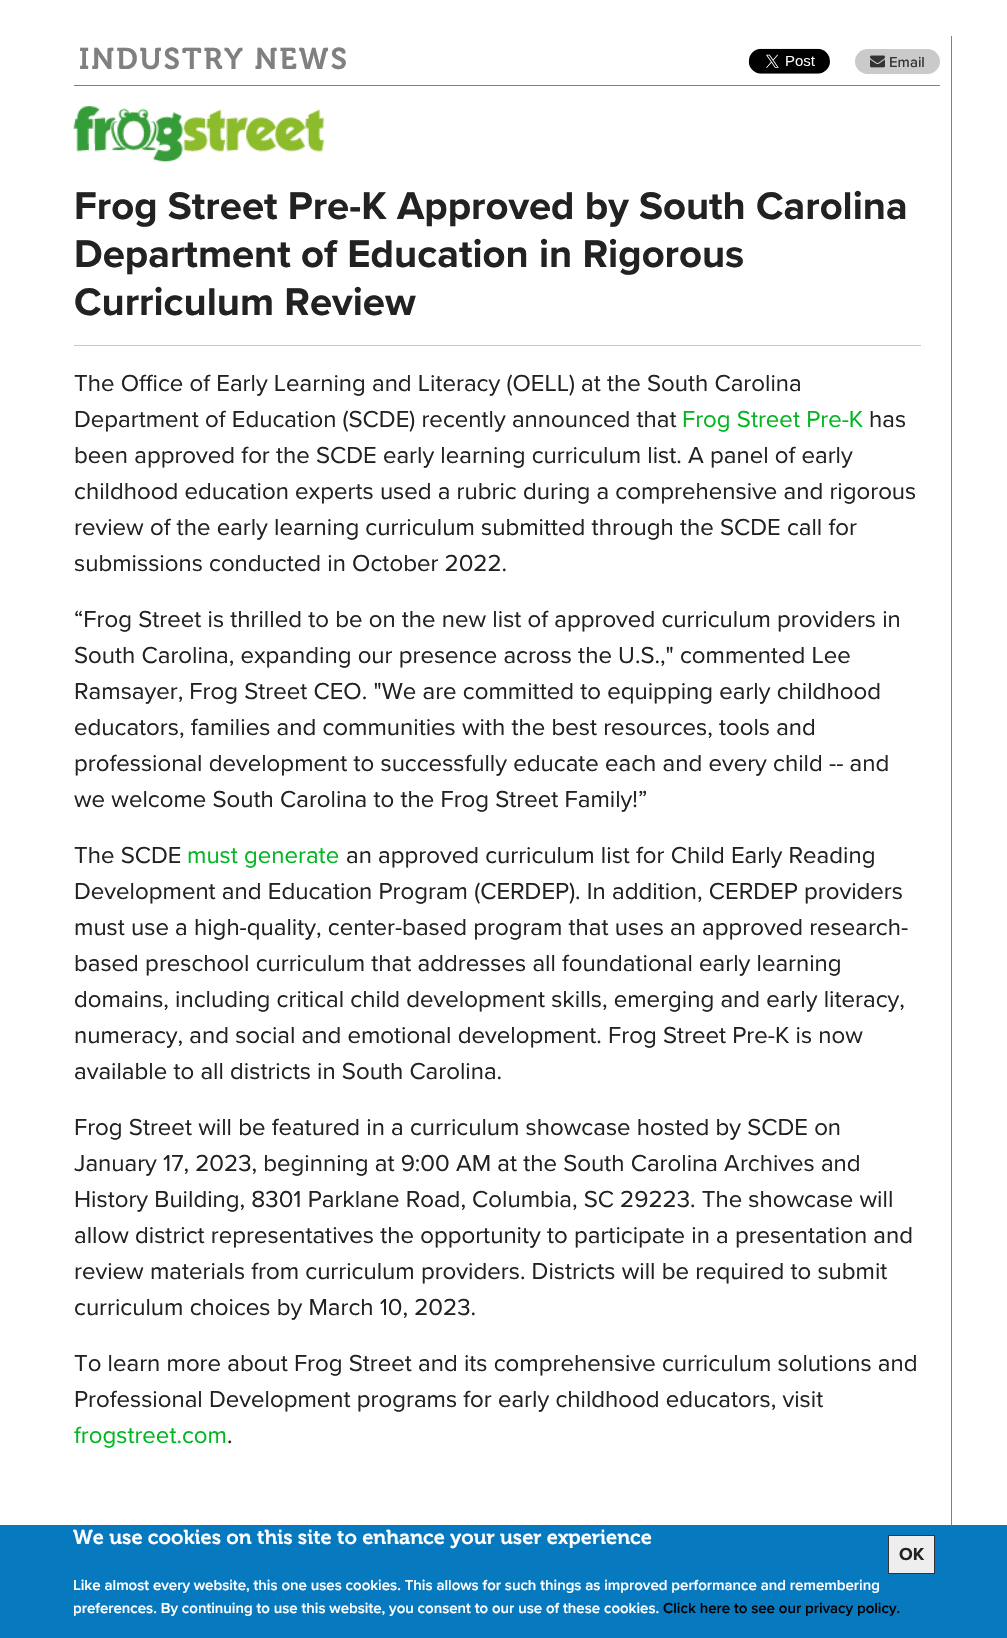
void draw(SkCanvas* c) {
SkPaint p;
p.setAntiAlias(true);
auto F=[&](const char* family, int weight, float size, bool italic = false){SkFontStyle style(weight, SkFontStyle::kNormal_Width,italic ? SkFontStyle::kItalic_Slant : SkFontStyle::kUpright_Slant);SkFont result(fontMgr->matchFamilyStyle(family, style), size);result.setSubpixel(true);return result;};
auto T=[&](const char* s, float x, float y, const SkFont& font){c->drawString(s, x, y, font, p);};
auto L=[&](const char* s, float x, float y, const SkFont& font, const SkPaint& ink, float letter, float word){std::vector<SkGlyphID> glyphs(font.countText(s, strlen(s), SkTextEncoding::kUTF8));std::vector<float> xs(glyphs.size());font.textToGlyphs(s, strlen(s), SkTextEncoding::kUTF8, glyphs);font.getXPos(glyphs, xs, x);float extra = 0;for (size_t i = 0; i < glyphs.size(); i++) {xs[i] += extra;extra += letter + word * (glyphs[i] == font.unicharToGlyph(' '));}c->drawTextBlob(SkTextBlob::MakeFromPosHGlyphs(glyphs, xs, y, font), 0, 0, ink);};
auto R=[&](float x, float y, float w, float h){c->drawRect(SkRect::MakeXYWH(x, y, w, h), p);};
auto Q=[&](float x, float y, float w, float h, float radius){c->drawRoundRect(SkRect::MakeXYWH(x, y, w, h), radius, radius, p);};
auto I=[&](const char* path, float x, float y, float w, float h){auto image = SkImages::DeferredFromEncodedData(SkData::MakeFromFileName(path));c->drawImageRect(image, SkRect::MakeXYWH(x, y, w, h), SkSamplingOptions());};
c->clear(0xffffffff);
p.setColor(0xff808080);
R(951,36,1,1489);
R(74,85,866,1);
auto f1 = F("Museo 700",600,30);
L("INDUSTRY NEWS",79,69,f1,p,1.9,0);
I("1.png",748,48,82,26);
p.setColor(0xffcacaca);
Q(855,49,85,25,12.5);
I("2.png",870,55,15,13);
auto f2 = F("Proxima Nova",500,15);
p.setColor(0xff333333);
T("Email",889,67,f2);
I("3.png",73,106,251,56);
auto f3 = F("Proxima Nova",700,40);
p.setColor(0xff222222);
T("Frog Street Pre-K Approved by South Carolina",74,219,f3);
T("Department of Education in Rigorous",74,267,f3);
T("Curriculum Review",74,315,f3);
p.setColor(0xffcacaca);
R(74,345,847,1);
auto f4 = F("Proxima Nova",400,24);
p.setColor(0xff222222);
T("The Office of Early Learning and Literacy (OELL) at the South Carolina",74,391,f4);
T("Department of Education (SCDE) recently announced that",74,427,f4);
p.setColor(0xff00b621);
T("Frog Street Pre-K",682,427,f4);
p.setColor(0xff222222);
T("has",869,427,f4);
T("been approved for the SCDE early learning curriculum list. A panel of early",74,463,f4);
T("childhood education experts used a rubric during a comprehensive and rigorous",74,499,f4);
T("review of the early learning curriculum submitted through the SCDE call for",74,535,f4);
T("submissions conducted in October 2022.",74,571,f4);
T("“Frog Street is thrilled to be on the new list of approved curriculum providers in",74,627,f4);
T("South Carolina, expanding our presence across the U.S.,\" commented Lee",74,663,f4);
T("Ramsayer, Frog Street CEO. \"We are committed to equipping early childhood",74,699,f4);
T("educators, families and communities with the best resources, tools and",74,735,f4);
T("professional development to successfully educate each and every child -- and",74,771,f4);
T("we welcome South Carolina to the Frog Street Family!”",74,807,f4);
T("The SCDE",74,863,f4);
p.setColor(0xff00b621);
T("must generate",187,863,f4);
p.setColor(0xff222222);
T("an approved curriculum list for Child Early Reading",346,863,f4);
T("Development and Education Program (CERDEP). In addition, CERDEP providers",74,899,f4);
T("must use a high-quality, center-based program that uses an approved research-",74,935,f4);
T("based preschool curriculum that addresses all foundational early learning",74,971,f4);
T("domains, including critical child development skills, emerging and early literacy,",74,1007,f4);
T("numeracy, and social and emotional development. Frog Street Pre-K is now",74,1043,f4);
T("available to all districts in South Carolina.",74,1079,f4);
T("Frog Street will be featured in a curriculum showcase hosted by SCDE on",74,1135,f4);
T("January 17, 2023, beginning at 9:00 AM at the South Carolina Archives and",74,1171,f4);
T("History Building, 8301 Parklane Road, Columbia, SC 29223. The showcase will",74,1207,f4);
T("allow district representatives the opportunity to participate in a presentation and",74,1243,f4);
T("review materials from curriculum providers. Districts will be required to submit",74,1279,f4);
T("curriculum choices by March 10, 2023.",74,1315,f4);
T("To learn more about Frog Street and its comprehensive curriculum solutions and",74,1371,f4);
T("Professional Development programs for early childhood educators, visit",74,1407,f4);
p.setColor(0xff00b621);
T("frogstreet.com",74,1443,f4);
p.setColor(0xff222222);
T(".",227,1443,f4);
p.setColor(0xff0779bf);
R(0,1525,1007,113);
auto f5 = F("Museo 700",600,20);
p.setColor(0xffffffff);
T("We use cookies on this site to enhance your user experience",73,1544,f5);
p.setColor(0xffeeeeee);
c->drawRect(SkRect::MakeXYWH(888.5,1535.5,46,38),p);
p.setStroke(true);
p.setStrokeWidth(1);
p.setColor(0xff333333);
c->drawRect(SkRect::MakeXYWH(888.5,1535.5,46,38),p);
auto f6 = F("Proxima Nova",700,18);
p.setStroke(false);
p.setColor(0xff222222);
T("OK",899,1560,f6);
auto f7 = F("Proxima Nova",600,15);
p.setColor(0xffffffff);
T("Like almost every website, this one uses cookies. This allows for such things as improved performance and remembering",73,1590,f7);
T("preferences. By continuing to use this website, you consent to our use of these cookies.",73,1613,f7);
p.setColor(0xff000000);
T("Click here to see our privacy policy.",663,1613,f7);
}
